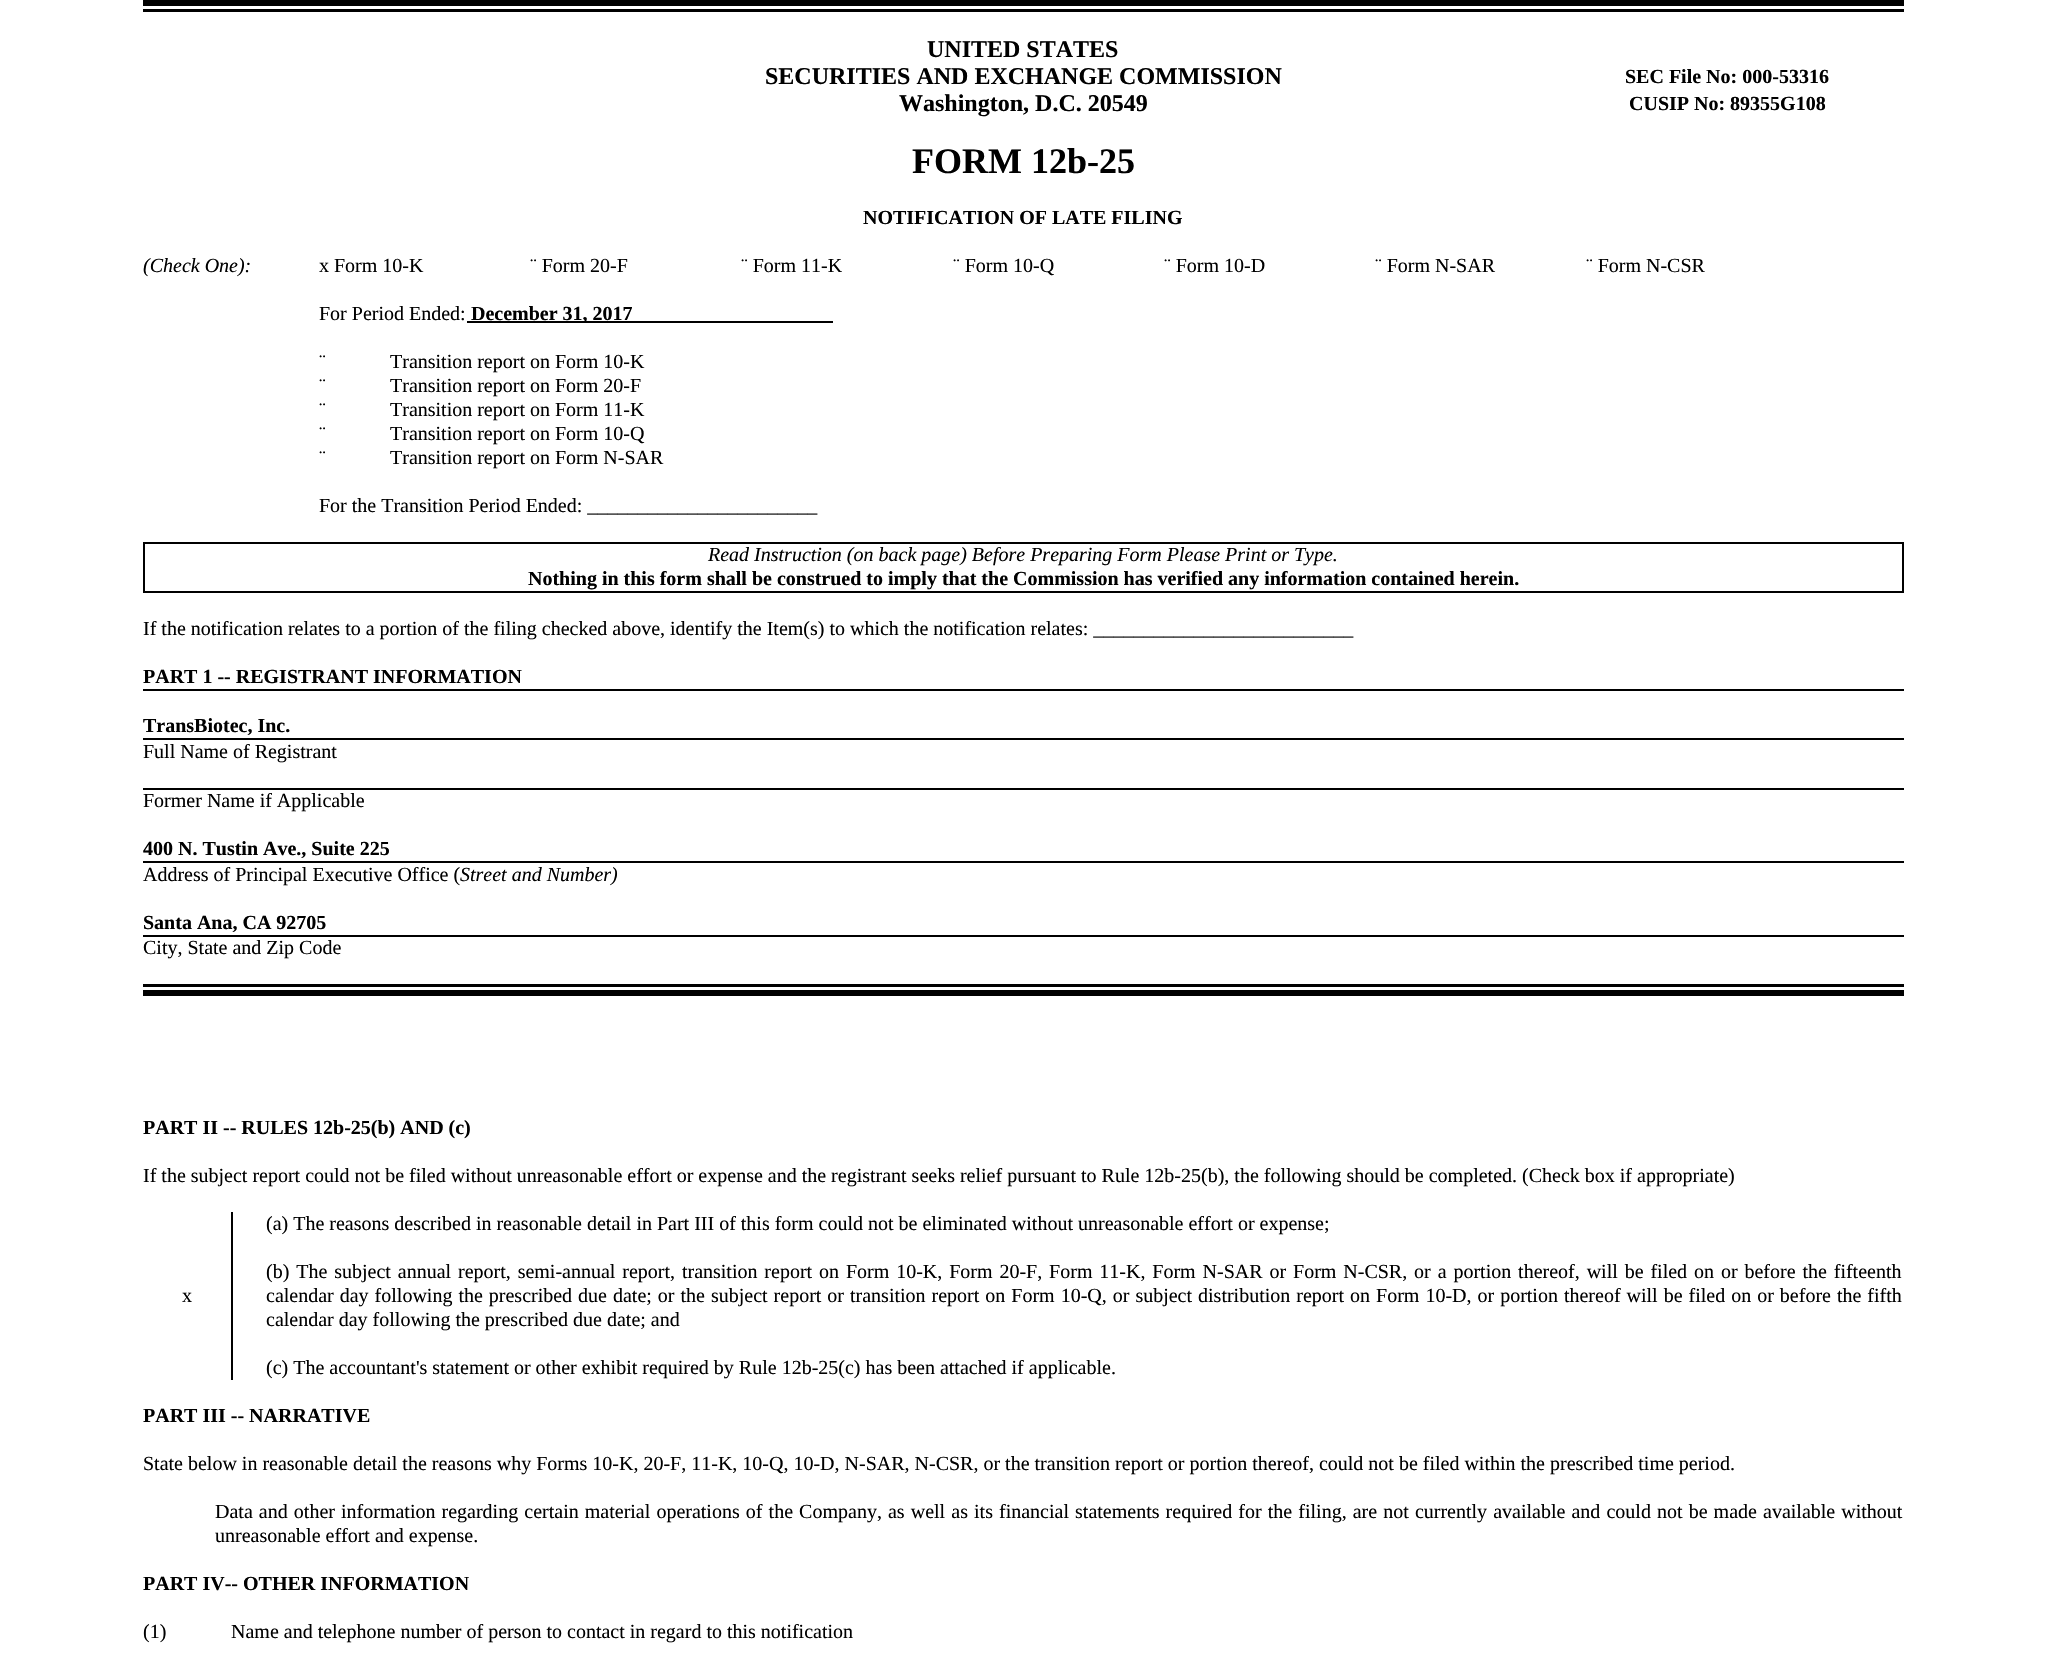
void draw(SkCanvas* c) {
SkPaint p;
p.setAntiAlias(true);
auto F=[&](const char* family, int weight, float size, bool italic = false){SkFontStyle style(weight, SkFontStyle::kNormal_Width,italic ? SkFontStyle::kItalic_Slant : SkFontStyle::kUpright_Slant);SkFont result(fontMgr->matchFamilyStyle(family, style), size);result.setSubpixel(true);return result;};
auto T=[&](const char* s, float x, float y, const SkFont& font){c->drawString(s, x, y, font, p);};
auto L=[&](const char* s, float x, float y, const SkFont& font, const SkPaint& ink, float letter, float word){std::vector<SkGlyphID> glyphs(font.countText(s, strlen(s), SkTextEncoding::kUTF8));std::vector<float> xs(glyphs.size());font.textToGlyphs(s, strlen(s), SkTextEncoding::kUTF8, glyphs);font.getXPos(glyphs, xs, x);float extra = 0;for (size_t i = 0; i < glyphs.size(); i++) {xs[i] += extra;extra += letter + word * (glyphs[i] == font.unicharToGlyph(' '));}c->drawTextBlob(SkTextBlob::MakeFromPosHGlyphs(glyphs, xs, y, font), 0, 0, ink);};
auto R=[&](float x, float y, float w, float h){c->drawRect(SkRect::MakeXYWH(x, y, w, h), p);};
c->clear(0xffffffff);
p.setColor(0xff000000);
R(143,0,1761,6);
R(143,9,1761,3);
auto f1 = F("Liberation Serif",700,24);
T("UNITED STATES",927,57,f1);
T("SECURITIES AND EXCHANGE COMMISSION",765,84,f1);
auto f2 = F("Liberation Serif",700,20);
T("SEC File No: 000-53316",1625,83,f2);
T("Washington, D.C. 20549",899,111,f1);
T("CUSIP No: 89355G108",1629,110,f2);
auto f3 = F("Liberation Serif",700,36);
T("FORM 12b-25",912,173,f3);
T("NOTIFICATION OF LATE FILING",863,224,f2);
auto f4 = F("Liberation Serif",400,20,true);
T("(Check One):",143,272,f4);
auto f5 = F("Liberation Serif",400,20);
T("x Form 10-K",319,272,f5);
T("¨ Form 20-F",530,272,f5);
T("¨ Form 11-K",741,272,f5);
T("¨ Form 10-Q",953,272,f5);
T("¨ Form 10-D",1164,272,f5);
T("¨ Form N-SAR",1375,272,f5);
T("¨ Form N-CSR",1586,272,f5);
T("For Period Ended:",319,320,f5);
R(467,321,366,2);
T("December 31, 2017",471,320,f2);
T("¨",319,368,f5);
T("Transition report on Form 10-K",390,368,f5);
T("¨",319,392,f5);
T("Transition report on Form 20-F",390,392,f5);
T("¨",319,416,f5);
T("Transition report on Form 11-K",390,416,f5);
T("¨",319,440,f5);
T("Transition report on Form 10-Q",390,440,f5);
T("¨",319,464,f5);
T("Transition report on Form N-SAR",390,464,f5);
T("For the Transition Period Ended: _______________________",319,512,f5);
R(1902,542,2,51);
R(143,591,1761,2);
R(143,542,1759,2);
R(143,542,2,49);
T("Read Instruction (on back page) Before Preparing Form Please Print or Type.",708,561,f4);
T("Nothing in this form shall be construed to imply that the Commission has verified any information contained herein.",528,585,f2);
T("If the notification relates to a portion of the filing checked above, identify the Item(s) to which the notification relates: __________________________",143,635,f5);
R(143,689,1761,2);
T("PART 1 -- REGISTRANT INFORMATION",143,683,f2);
R(143,738,1761,2);
T("TransBiotec, Inc.",143,732,f2);
T("Full Name of Registrant",143,758,f5);
R(143,788,1761,2);
T("Former Name if Applicable",143,807,f5);
R(143,861,1761,2);
T("400 N. Tustin Ave., Suite 225",143,855,f2);
T("Address of Principal Executive Office (",143,881,f5);
T("Street and Number)",460,881,f4);
R(143,935,1761,2);
T("Santa Ana, CA 92705",143,929,f2);
T("City, State and Zip Code",143,954,f5);
R(143,984,1761,3);
R(143,990,1761,6);
T("PART II -- RULES 12b-25(b) AND (c)",143,1134,f2);
T("If the subject report could not be filed without unreasonable effort or expense and the registrant seeks relief pursuant to Rule 12b-25(b), the following should be completed. (Check box if appropriate)",143,1182,f5);
R(231,1212,2,168);
T("(a) The reasons described in reasonable detail in Part III of this form could not be eliminated without unreasonable effort or expense;",266,1230,f5);
T("x",182,1302,f5);
L("(b) The subject annual report, semi-annual report, transition report on Form 10-K, Form 20-F, Form 11-K, Form N-SAR or Form N-CSR, or a portion thereof, will be filed on or before the fifteenth",266,1278,f5,p,0,1.9);
L("calendar day following the prescribed due date; or the subject report or transition report on Form 10-Q, or subject distribution report on Form 10-D, or portion thereof will be filed on or before the fifth",266,1302,f5,p,0,1);
T("calendar day following the prescribed due date; and",266,1326,f5);
T("(c) The accountant's statement or other exhibit required by Rule 12b-25(c) has been attached if applicable.",266,1374,f5);
T("PART III -- NARRATIVE",143,1422,f2);
T("State below in reasonable detail the reasons why Forms 10-K, 20-F, 11-K, 10-Q, 10-D, N-SAR, N-CSR, or the transition report or portion thereof, could not be filed within the prescribed time period.",143,1470,f5);
L("Data and other information regarding certain material operations of the Company, as well as its financial statements required for the filing, are not currently available and could not be made available without",215,1518,f5,p,0,1.1);
T("unreasonable effort and expense.",215,1542,f5);
T("PART IV-- OTHER INFORMATION",143,1590,f2);
T("(1)",143,1638,f5);
T("Name and telephone number of person to contact in regard to this notification",231,1638,f5);
}
